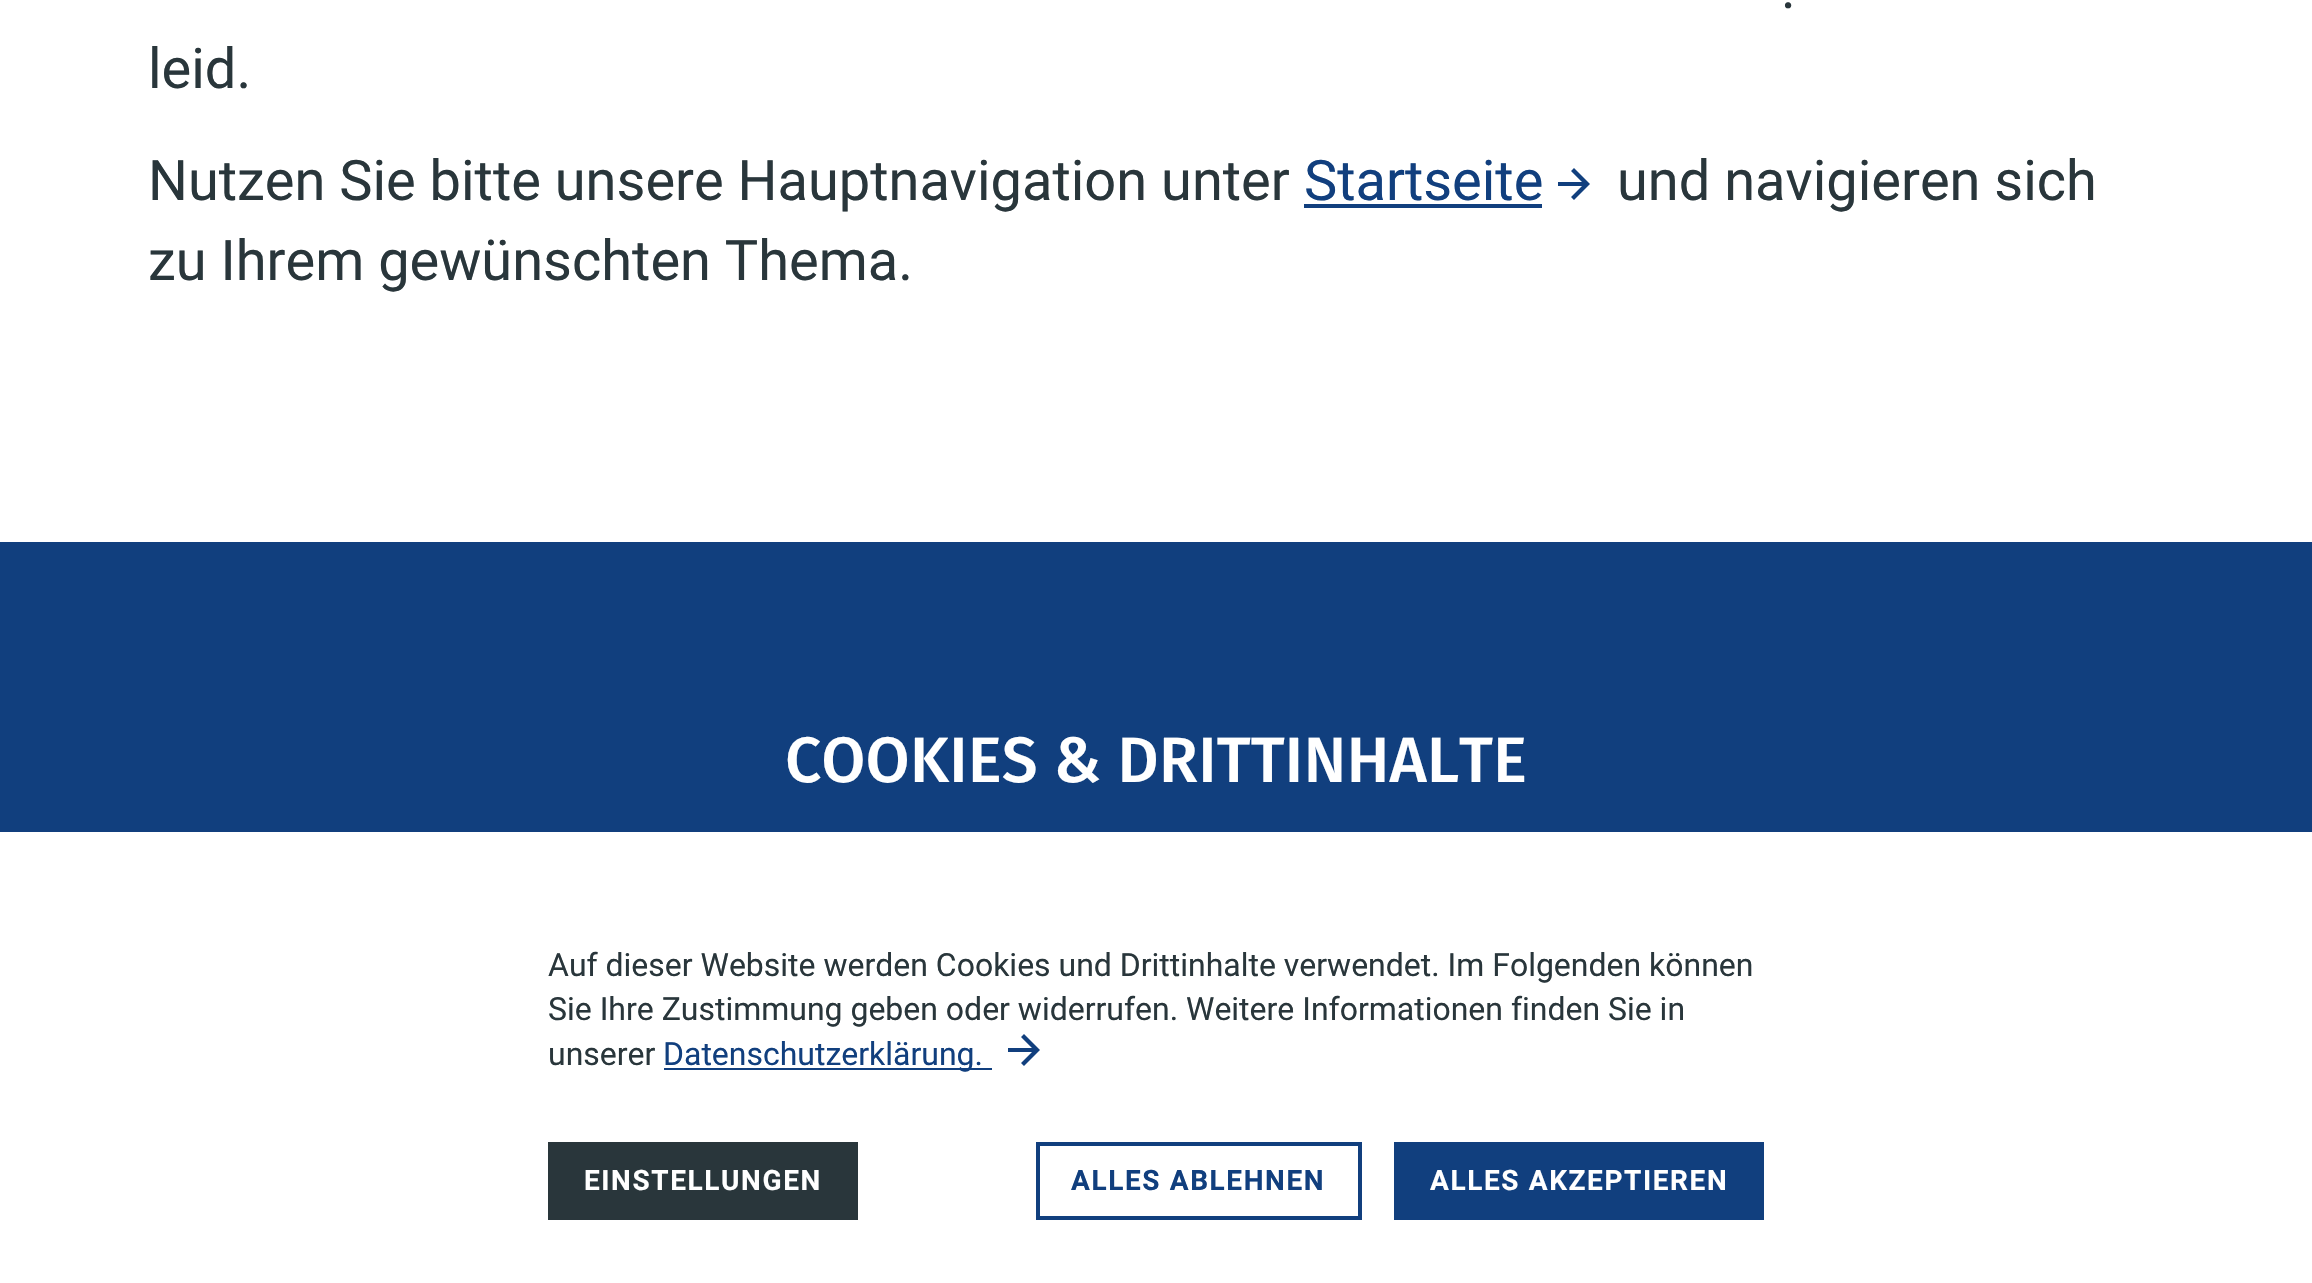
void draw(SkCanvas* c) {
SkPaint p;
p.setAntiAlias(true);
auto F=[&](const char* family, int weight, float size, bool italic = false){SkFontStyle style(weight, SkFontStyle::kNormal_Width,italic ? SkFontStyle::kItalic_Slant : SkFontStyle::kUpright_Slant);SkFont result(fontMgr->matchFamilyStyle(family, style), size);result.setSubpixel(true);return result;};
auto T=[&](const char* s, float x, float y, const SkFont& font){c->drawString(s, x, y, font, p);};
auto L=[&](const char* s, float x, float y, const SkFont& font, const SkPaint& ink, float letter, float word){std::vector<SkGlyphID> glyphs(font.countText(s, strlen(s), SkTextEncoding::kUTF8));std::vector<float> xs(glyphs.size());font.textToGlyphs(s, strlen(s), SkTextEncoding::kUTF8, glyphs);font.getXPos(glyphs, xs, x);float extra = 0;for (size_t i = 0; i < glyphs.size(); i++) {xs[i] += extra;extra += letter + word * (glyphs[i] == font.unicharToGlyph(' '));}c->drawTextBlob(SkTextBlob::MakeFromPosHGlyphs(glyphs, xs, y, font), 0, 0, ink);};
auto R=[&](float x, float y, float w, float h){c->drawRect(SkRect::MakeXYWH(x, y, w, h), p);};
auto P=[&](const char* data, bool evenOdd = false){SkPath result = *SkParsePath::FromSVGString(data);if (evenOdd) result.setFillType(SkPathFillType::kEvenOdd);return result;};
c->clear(0xffffffff);
auto f1 = F("Roboto",400,56);
p.setColor(0xff29363b);
T(".",1781,8,f1);
T("leid.",148,88,f1);
T("Nutzen Sie bitte unsere Hauptnavigation unter",148,200,f1);
p.setColor(0xff113f7e);
T("Startseite",1304,200,f1);
R(1304,204,238,4);
c->drawPath(P("M1558 182v4h24l-11 11l3 3l16-16l-16-16l-3 3l11 11z"),p);
p.setColor(0xff29363b);
T("und navigieren sich",1617,200,f1);
T("zu Ihrem gewünschten Thema.",148,280,f1);
p.setColor(0xff113f7e);
R(0,542,2312,290);
auto f2 = F("Fira Sans",500,64);
p.setColor(0xffffffff);
T("COOKIES & DRITTINHALTE",785,782,f2);
auto f3 = F("Roboto",400,32);
p.setColor(0xff29363b);
T("Auf dieser Website werden Cookies und Drittinhalte verwendet. Im Folgenden können",548,976,f3);
T("Sie Ihre Zustimmung geben oder widerrufen. Weitere Informationen finden Sie in",548,1020,f3);
T("unserer",548,1065,f3);
p.setColor(0xff113f7e);
R(664,1068,328,2);
T("Datenschutzerklärung.",663,1065,f3);
c->drawPath(P("M1008 1048v4h24l-11 11l3 3l16-16l-16-16l-3 3l11 11z"),p);
p.setColor(0xff29363b);
R(548,1142,310,78);
auto f4 = F("Roboto",700,28);
p.setColor(0xffffffff);
L("EINSTELLUNGEN",584,1190,f4,p,1.6,0);
p.setStroke(true);
p.setStrokeWidth(4);
p.setColor(0xff113f7e);
c->drawRect(SkRect::MakeXYWH(1038,1144,322,74),p);
p.setStroke(false);
L("ALLES ABLEHNEN",1071,1190,f4,p,1.6,0);
R(1394,1142,370,78);
p.setColor(0xffffffff);
L("ALLES AKZEPTIEREN",1430,1190,f4,p,1.6,0);
}
